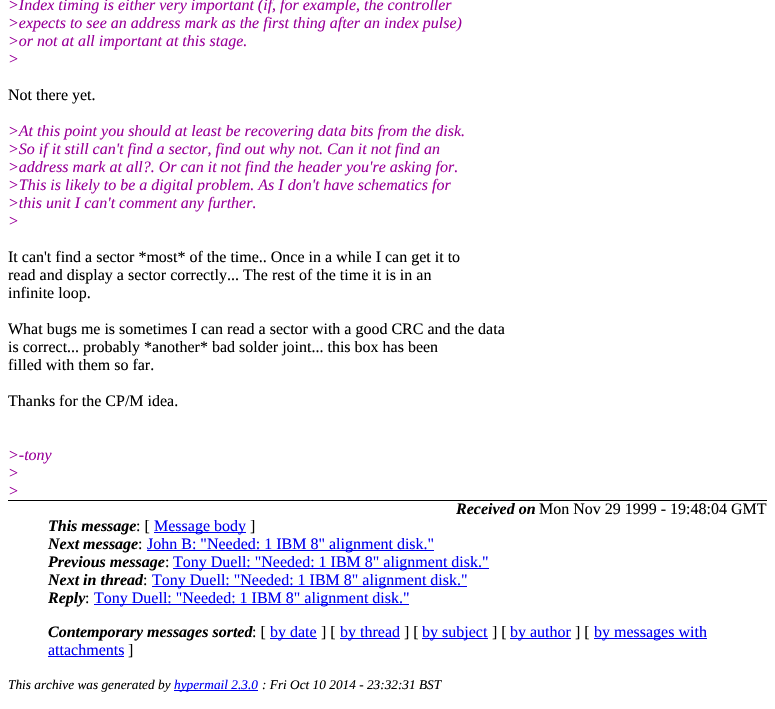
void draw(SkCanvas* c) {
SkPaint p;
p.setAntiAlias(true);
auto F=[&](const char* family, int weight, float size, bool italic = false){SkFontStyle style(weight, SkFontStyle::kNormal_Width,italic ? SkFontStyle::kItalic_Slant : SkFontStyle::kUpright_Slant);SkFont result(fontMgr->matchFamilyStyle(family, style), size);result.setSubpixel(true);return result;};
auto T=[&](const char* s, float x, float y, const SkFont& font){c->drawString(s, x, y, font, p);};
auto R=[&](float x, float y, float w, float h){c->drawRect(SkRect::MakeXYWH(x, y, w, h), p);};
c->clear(0xffffffff);
auto f1 = F("Liberation Serif",400,16,true);
p.setColor(0xff990099);
T(">Index timing is either very important (if, for example, the controller",8,10,f1);
T(">expects to see an address mark as the first thing after an index pulse)",8,28,f1);
T(">or not at all important at this stage.",8,46,f1);
T(">",8,64,f1);
auto f2 = F("Liberation Serif",400,16);
p.setColor(0xff000000);
T("Not there yet.",8,100,f2);
p.setColor(0xff990099);
T(">At this point you should at least be recovering data bits from the disk.",8,136,f1);
T(">So if it still can't find a sector, find out why not. Can it not find an",8,154,f1);
T(">address mark at all?. Or can it not find the header you're asking for.",8,172,f1);
T(">This is likely to be a digital problem. As I don't have schematics for",8,190,f1);
T(">this unit I can't comment any further.",8,208,f1);
T(">",8,226,f1);
p.setColor(0xff000000);
T("It can't find a sector *most* of the time.. Once in a while I can get it to",8,262,f2);
T("read and display a sector correctly... The rest of the time it is in an",8,280,f2);
T("infinite loop.",8,298,f2);
T("What bugs me is sometimes I can read a sector with a good CRC and the data",8,334,f2);
T("is correct... probably *another* bad solder joint... this box has been",8,352,f2);
T("filled with them so far.",8,370,f2);
T("Thanks for the CP/M idea.",8,406,f2);
p.setColor(0xff990099);
T(">-tony",8,460,f1);
T(">",8,478,f1);
T(">",8,496,f1);
auto f3 = F("Liberation Serif",700,16,true);
p.setColor(0xff000000);
T("Received on",456,514,f3);
T("Mon Nov 29 1999 - 19:48:04 GMT",539,514,f2);
R(8,500,759,1);
T("This message",48,531,f3);
T(": [",136,531,f2);
p.setColor(0xff0000ee);
R(154,532,92,1);
T("Message body",154,531,f2);
p.setColor(0xff000000);
T("]",250,531,f2);
T("Next message",48,549,f3);
T(":",138,549,f2);
p.setColor(0xff0000ee);
R(147,550,287,1);
T("John B: \"Needed: 1 IBM 8\" alignment disk.\"",147,549,f2);
p.setColor(0xff000000);
T("Previous message",48,567,f3);
T(":",165,567,f2);
p.setColor(0xff0000ee);
R(173,568,316,1);
T("Tony Duell: \"Needed: 1 IBM 8\" alignment disk.\"",173,567,f2);
p.setColor(0xff000000);
T("Next in thread",48,585,f3);
T(":",143,585,f2);
p.setColor(0xff0000ee);
R(152,586,315,1);
T("Tony Duell: \"Needed: 1 IBM 8\" alignment disk.\"",152,585,f2);
p.setColor(0xff000000);
T("Reply",48,603,f3);
T(":",85,603,f2);
p.setColor(0xff0000ee);
R(94,604,315,1);
T("Tony Duell: \"Needed: 1 IBM 8\" alignment disk.\"",94,603,f2);
p.setColor(0xff000000);
T("Contemporary messages sorted",48,637,f3);
T(": [",252,637,f2);
p.setColor(0xff0000ee);
R(270,638,47,1);
T("by date",270,637,f2);
p.setColor(0xff000000);
T("] [",321,637,f2);
p.setColor(0xff0000ee);
R(340,638,60,1);
T("by thread",340,637,f2);
p.setColor(0xff000000);
T("] [",404,637,f2);
p.setColor(0xff0000ee);
R(422,638,66,1);
T("by subject",422,637,f2);
p.setColor(0xff000000);
T("] [",492,637,f2);
p.setColor(0xff0000ee);
R(510,638,61,1);
T("by author",510,637,f2);
p.setColor(0xff000000);
T("] [",575,637,f2);
p.setColor(0xff0000ee);
R(594,638,113,1);
T("by messages with",594,637,f2);
T("attachments",48,655,f2);
R(48,656,76,1);
p.setColor(0xff000000);
T("]",128,655,f2);
auto f4 = F("Liberation Serif",400,13.3,true);
T("This archive was generated by",8,689,f4);
p.setColor(0xff0000ee);
R(174,690,84,1);
T("hypermail 2.3.0",174,689,f4);
p.setColor(0xff000000);
T(": Fri Oct 10 2014 - 23:32:31 BST",262,689,f4);
}
